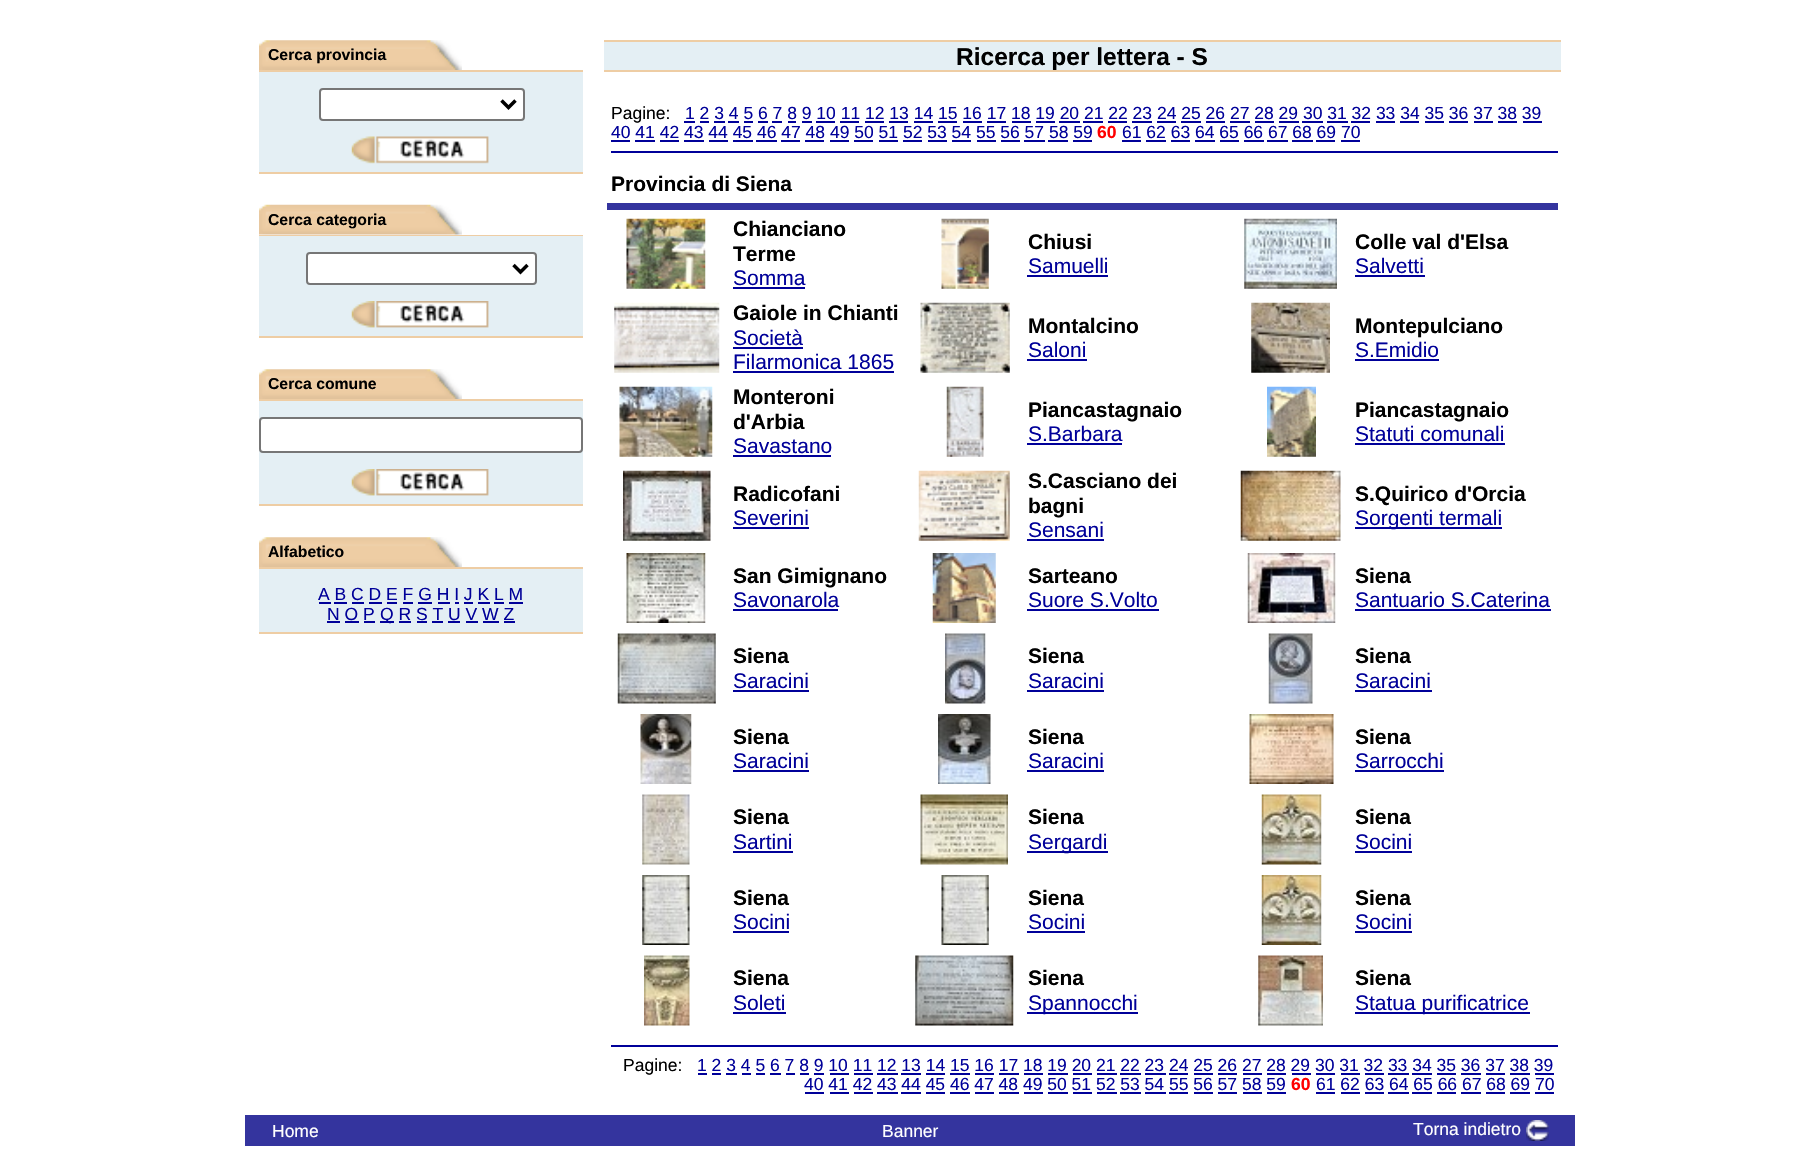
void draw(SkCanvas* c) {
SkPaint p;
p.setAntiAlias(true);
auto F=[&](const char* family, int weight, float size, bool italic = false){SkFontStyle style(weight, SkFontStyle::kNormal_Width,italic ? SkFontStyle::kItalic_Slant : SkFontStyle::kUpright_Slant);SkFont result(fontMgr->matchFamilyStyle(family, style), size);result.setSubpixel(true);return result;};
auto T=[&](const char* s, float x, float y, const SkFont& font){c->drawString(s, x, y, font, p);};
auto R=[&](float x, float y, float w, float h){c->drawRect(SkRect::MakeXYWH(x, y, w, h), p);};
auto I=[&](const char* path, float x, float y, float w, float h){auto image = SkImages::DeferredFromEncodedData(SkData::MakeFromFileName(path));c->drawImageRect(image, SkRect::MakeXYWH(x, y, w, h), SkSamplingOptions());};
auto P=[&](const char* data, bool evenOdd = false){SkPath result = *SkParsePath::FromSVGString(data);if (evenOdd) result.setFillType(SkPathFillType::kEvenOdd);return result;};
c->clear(0xffffffff);
I("1.png",259,40,203,30);
auto f1 = F("Liberation Sans",700,15.75);
p.setColor(0xff000000);
T("Cerca provincia",268,60,f1);
p.setColor(0xffeecda4);
R(259,70,324,2);
p.setColor(0xffe4eff4);
R(259,72,324,100);
p.setColor(0xffffffff);
c->drawRoundRect(SkRect::MakeXYWH(320,89,204,31),3,3,p);
p.setStroke(true);
p.setStrokeWidth(2);
p.setColor(0xff767676);
c->drawRoundRect(SkRect::MakeXYWH(320,89,204,31),3,3,p);
p.setStrokeWidth(3.5);
p.setColor(0xff000000);
c->drawPath(P("M501.5 100.5l7 7l7-7"),p);
I("2.png",351,136,138,28);
p.setStroke(false);
p.setColor(0xffeecda4);
R(259,172,324,2);
I("3.png",259,204,203,31);
p.setColor(0xff000000);
T("Cerca categoria",268,225,f1);
p.setColor(0xffeecda4);
R(259,235,324,1);
p.setColor(0xffe4eff4);
R(259,236,324,100);
p.setColor(0xffffffff);
c->drawRoundRect(SkRect::MakeXYWH(307,253,229,31),3,3,p);
p.setStroke(true);
p.setStrokeWidth(2);
p.setColor(0xff767676);
c->drawRoundRect(SkRect::MakeXYWH(307,253,229,31),3,3,p);
p.setStrokeWidth(3.5);
p.setColor(0xff000000);
c->drawPath(P("M513.5 265l7 7l7-7"),p);
I("4.png",351,301,138,27);
p.setStroke(false);
p.setColor(0xffeecda4);
R(259,336,324,2);
I("1.png",259,369,203,30);
p.setColor(0xff000000);
T("Cerca comune",268,389,f1);
p.setColor(0xffeecda4);
R(259,399,324,2);
p.setColor(0xffe4eff4);
R(259,401,324,103);
p.setColor(0xffffffff);
c->drawRoundRect(SkRect::MakeXYWH(260,418,322,34),3,3,p);
p.setStroke(true);
p.setStrokeWidth(2);
p.setColor(0xff767676);
c->drawRoundRect(SkRect::MakeXYWH(260,418,322,34),3,3,p);
I("4.png",351,469,138,27);
p.setStroke(false);
p.setColor(0xffeecda4);
R(259,504,324,2);
I("1.png",259,537,203,30);
p.setColor(0xff000000);
T("Alfabetico",268,557,f1);
p.setColor(0xffeecda4);
R(259,567,324,2);
p.setColor(0xffe4eff4);
R(259,569,324,63);
auto f2 = F("Liberation Sans",400,17.5);
p.setColor(0xff000099);
T("A B C D E F G H I J K L M",318,600,f2);
R(319,602,12,2);
R(334,602,13,2);
R(352,602,12,2);
R(369,602,13,2);
R(387,602,10,2);
R(403,602,10,2);
R(418,602,14,2);
R(438,602,12,2);
R(455,602,4,2);
R(464,602,9,2);
R(478,602,12,2);
R(494,602,10,2);
R(509,602,14,2);
T("N O P",327,620,f2);
R(327,621,13,2);
R(380,621,14,2);
T("Q R S T U V W Z",380,620,f2);
R(345,621,14,2);
R(364,621,11,2);
R(399,621,12,2);
R(417,621,10,2);
R(432,621,11,2);
R(448,621,12,2);
R(466,621,12,2);
R(483,621,16,2);
R(504,621,11,2);
p.setColor(0xffeecda4);
R(259,632,324,2);
R(604,40,957,2);
p.setColor(0xffe4eff4);
R(604,42,957,28);
p.setColor(0xffeecda4);
R(604,70,957,2);
auto f3 = F("Liberation Sans",700,24.5);
p.setColor(0xff000000);
T("Ricerca per lettera - S",956,65,f3);
T("Pagine:",611,119,f2);
p.setColor(0xff000099);
T("1 2 3 4 5 6 7 8 9 10 11 12 13 14 15 16 17 18 19 20 21 22 23 24 25 26 27 28 29 30 31 32 33 34 35 36 37 38 39",685,119,f2);
R(684,121,11,2);
R(700,121,9,2);
R(714,121,11,2);
R(728,121,11,2);
R(744,121,9,2);
R(758,121,10,2);
R(772,121,10,2);
R(788,121,8,2);
R(802,121,10,2);
R(816,121,19,2);
R(840,121,19,2);
R(865,121,19,2);
R(889,121,19,2);
R(914,121,19,2);
R(938,121,19,2);
R(963,121,19,2);
R(987,121,19,2);
R(1012,121,19,2);
R(1036,121,19,2);
R(1059,121,21,2);
R(1083,121,20,2);
R(1108,121,19,2);
R(1132,121,20,2);
R(1157,121,19,2);
R(1181,121,20,2);
R(1206,121,19,2);
R(1230,121,20,2);
R(1255,121,19,2);
R(1279,121,20,2);
R(1302,121,21,2);
R(1327,121,21,2);
R(1351,121,19,2);
R(1376,121,19,2);
R(1400,121,19,2);
R(1425,121,19,2);
R(1449,121,19,2);
R(1474,121,19,2);
R(1498,121,19,2);
R(1523,121,19,2);
T("40 41 42 43 44 45 46 47 48 49 50 51 52 53 54 55 56 57 58 59",611,138,f2);
R(611,140,19,2);
auto f4 = F("Liberation Sans",700,17.5);
p.setColor(0xffff0000);
T("60",1097,138,f4);
p.setColor(0xff000099);
T("61 62 63 64 65 66 67 68 69 70",1122,138,f2);
R(1122,140,19,2);
R(635,140,20,2);
R(660,140,19,2);
R(684,140,20,2);
R(709,140,19,2);
R(733,140,20,2);
R(756,140,21,2);
R(781,140,19,2);
R(805,140,19,2);
R(830,140,19,2);
R(854,140,19,2);
R(879,140,19,2);
R(903,140,19,2);
R(928,140,19,2);
R(952,140,19,2);
R(977,140,19,2);
R(1001,140,19,2);
R(1024,140,21,2);
R(1048,140,20,2);
R(1073,140,19,2);
R(1146,140,20,2);
R(1171,140,19,2);
R(1195,140,20,2);
R(1220,140,19,2);
R(1244,140,20,2);
R(1267,140,21,2);
R(1292,140,21,2);
R(1316,140,19,2);
R(1341,140,19,2);
R(611,151,947,2);
auto f5 = F("Liberation Sans",700,21);
p.setColor(0xff000000);
T("Provincia di Siena",611,191,f5);
p.setColor(0xff34349e);
R(607,203,951,7);
I("5.png",626,218,80,71);
p.setColor(0xff000000);
T("Chianciano",733,236,f5);
T("Terme",733,261,f5);
auto f6 = F("Liberation Sans",400,21);
p.setColor(0xff000099);
T("Somma",733,285,f6);
R(733,287,72,2);
I("6.png",941,218,48,71);
p.setColor(0xff000000);
T("Chiusi",1028,249,f5);
p.setColor(0xff000099);
T("Samuelli",1028,273,f6);
R(1027,275,81,2);
I("7.png",1244,218,93,71);
p.setColor(0xff000000);
T("Colle val d'Elsa",1355,249,f5);
p.setColor(0xff000099);
T("Salvetti",1355,273,f6);
R(1355,275,70,2);
I("8.png",614,302,106,71);
p.setColor(0xff000000);
T("Gaiole in Chianti",733,320,f5);
p.setColor(0xff000099);
T("Società",733,345,f6);
R(733,347,70,2);
T("Filarmonica 1865",733,369,f6);
R(733,371,161,2);
I("9.png",920,302,90,71);
p.setColor(0xff000000);
T("Montalcino",1028,333,f5);
p.setColor(0xff000099);
T("Saloni",1028,357,f6);
R(1027,359,60,2);
I("10.png",1251,302,79,71);
p.setColor(0xff000000);
T("Montepulciano",1355,333,f5);
p.setColor(0xff000099);
T("S.Emidio",1355,357,f6);
R(1355,359,84,2);
I("11.png",619,386,94,71);
p.setColor(0xff000000);
T("Monteroni",733,404,f5);
T("d'Arbia",733,429,f5);
p.setColor(0xff000099);
T("Savastano",733,453,f6);
R(733,455,98,2);
I("12.png",946,386,38,71);
p.setColor(0xff000000);
T("Piancastagnaio",1028,417,f5);
p.setColor(0xff000099);
T("S.Barbara",1028,441,f6);
R(1027,443,95,2);
I("13.png",1267,386,49,71);
p.setColor(0xff000000);
T("Piancastagnaio",1355,417,f5);
p.setColor(0xff000099);
T("Statuti comunali",1355,441,f6);
R(1355,443,150,2);
I("14.png",623,470,88,71);
p.setColor(0xff000000);
T("Radicofani",733,501,f5);
p.setColor(0xff000099);
T("Severini",733,525,f6);
R(733,527,76,2);
I("15.png",918,470,92,71);
p.setColor(0xff000000);
T("S.Casciano dei",1028,488,f5);
T("bagni",1028,513,f5);
p.setColor(0xff000099);
T("Sensani",1028,537,f6);
R(1027,539,77,2);
I("16.png",1240,470,101,71);
p.setColor(0xff000000);
T("S.Quirico d'Orcia",1355,501,f5);
p.setColor(0xff000099);
R(1355,527,147,2);
T("Sorgenti termali",1355,525,f6);
I("17.png",626,553,80,70);
p.setColor(0xff000000);
T("San Gimignano",733,583,f5);
p.setColor(0xff000099);
T("Savonarola",733,607,f6);
R(733,609,105,2);
I("18.png",932,553,64,70);
p.setColor(0xff000000);
T("Sarteano",1028,583,f5);
p.setColor(0xff000099);
T("Suore S.Volto",1028,607,f6);
R(1027,609,132,2);
I("19.png",1247,553,89,70);
p.setColor(0xff000000);
T("Siena",1355,583,f5);
p.setColor(0xff000099);
T("Santuario S.Caterina",1355,607,f6);
R(1355,609,196,2);
I("20.png",617,633,99,71);
p.setColor(0xff000000);
T("Siena",733,663,f5);
p.setColor(0xff000099);
T("Saracini",733,688,f6);
R(733,690,76,2);
I("21.png",945,633,41,71);
p.setColor(0xff000000);
T("Siena",1028,663,f5);
p.setColor(0xff000099);
T("Saracini",1028,688,f6);
R(1027,690,77,2);
I("22.png",1268,633,45,71);
p.setColor(0xff000000);
T("Siena",1355,663,f5);
p.setColor(0xff000099);
T("Saracini",1355,688,f6);
R(1355,690,77,2);
I("23.png",640,714,52,70);
p.setColor(0xff000000);
T("Siena",733,744,f5);
p.setColor(0xff000099);
T("Saracini",733,768,f6);
R(733,770,76,2);
I("24.png",938,714,53,70);
p.setColor(0xff000000);
T("Siena",1028,744,f5);
p.setColor(0xff000099);
T("Saracini",1028,768,f6);
R(1027,770,77,2);
I("25.png",1249,714,85,70);
p.setColor(0xff000000);
T("Siena",1355,744,f5);
p.setColor(0xff000099);
T("Sarrocchi",1355,768,f6);
R(1355,770,89,2);
I("26.png",642,794,48,71);
p.setColor(0xff000000);
T("Siena",733,824,f5);
p.setColor(0xff000099);
T("Sartini",733,849,f6);
R(733,851,60,2);
I("27.png",920,794,88,71);
p.setColor(0xff000000);
T("Siena",1028,824,f5);
p.setColor(0xff000099);
R(1027,851,81,2);
T("Sergardi",1028,849,f6);
I("28.png",1261,794,61,71);
p.setColor(0xff000000);
T("Siena",1355,824,f5);
p.setColor(0xff000099);
T("Socini",1355,849,f6);
R(1355,851,57,2);
I("29.png",642,875,48,70);
p.setColor(0xff000000);
T("Siena",733,905,f5);
p.setColor(0xff000099);
T("Socini",733,929,f6);
R(733,931,56,2);
I("30.png",941,875,48,70);
p.setColor(0xff000000);
T("Siena",1028,905,f5);
p.setColor(0xff000099);
T("Socini",1028,929,f6);
R(1027,931,58,2);
I("31.png",1261,875,61,70);
p.setColor(0xff000000);
T("Siena",1355,905,f5);
p.setColor(0xff000099);
T("Socini",1355,929,f6);
R(1355,931,57,2);
I("32.png",644,955,46,71);
p.setColor(0xff000000);
T("Siena",733,985,f5);
p.setColor(0xff000099);
T("Soleti",733,1010,f6);
R(733,1012,53,2);
I("33.png",915,955,99,71);
p.setColor(0xff000000);
T("Siena",1028,985,f5);
p.setColor(0xff000099);
R(1027,1012,111,2);
T("Spannocchi",1028,1010,f6);
I("34.png",1258,955,65,71);
p.setColor(0xff000000);
T("Siena",1355,985,f5);
p.setColor(0xff000099);
R(1355,1012,175,2);
T("Statua purificatrice",1355,1010,f6);
R(611,1045,947,2);
p.setColor(0xff000000);
T("Pagine:",623,1071,f2);
p.setColor(0xff000099);
T("1 2 3 4 5 6 7 8 9 10 11 12 13 14 15 16 17 18 19 20 21 22 23 24 25 26 27 28 29 30 31 32 33 34 35 36 37 38 39",697,1071,f2);
R(698,1073,9,2);
R(712,1073,9,2);
R(726,1073,11,2);
R(742,1073,9,2);
R(756,1073,9,2);
R(770,1073,11,2);
R(786,1073,9,2);
R(800,1073,9,2);
R(814,1073,10,2);
R(830,1073,19,2);
R(854,1073,19,2);
R(877,1073,21,2);
R(901,1073,20,2);
R(926,1073,19,2);
R(950,1073,20,2);
R(975,1073,19,2);
R(999,1073,20,2);
R(1024,1073,19,2);
R(1048,1073,20,2);
R(1073,1073,19,2);
R(1097,1073,20,2);
R(1120,1073,21,2);
R(1145,1073,21,2);
R(1169,1073,19,2);
R(1194,1073,19,2);
R(1218,1073,19,2);
R(1243,1073,19,2);
R(1267,1073,19,2);
R(1292,1073,19,2);
R(1316,1073,19,2);
R(1341,1073,19,2);
R(1365,1073,19,2);
R(1388,1073,21,2);
R(1412,1073,20,2);
R(1437,1073,19,2);
R(1461,1073,20,2);
R(1486,1073,19,2);
R(1510,1073,20,2);
R(1535,1073,19,2);
T("40 41 42 43 44 45 46 47 48 49 50 51 52 53 54 55 56 57 58 59",804,1090,f2);
R(805,1092,19,2);
p.setColor(0xffff0000);
T("60",1291,1090,f4);
p.setColor(0xff000099);
T("61 62 63 64 65 66 67 68 69 70",1316,1090,f2);
R(1316,1092,19,2);
R(830,1092,19,2);
R(854,1092,19,2);
R(877,1092,21,2);
R(901,1092,20,2);
R(926,1092,19,2);
R(950,1092,20,2);
R(975,1092,19,2);
R(999,1092,20,2);
R(1024,1092,19,2);
R(1048,1092,20,2);
R(1073,1092,19,2);
R(1097,1092,20,2);
R(1120,1092,21,2);
R(1145,1092,21,2);
R(1169,1092,19,2);
R(1194,1092,19,2);
R(1218,1092,19,2);
R(1243,1092,19,2);
R(1267,1092,19,2);
R(1341,1092,19,2);
R(1365,1092,19,2);
R(1388,1092,21,2);
R(1412,1092,20,2);
R(1437,1092,19,2);
R(1461,1092,20,2);
R(1486,1092,19,2);
R(1510,1092,20,2);
R(1535,1092,19,2);
p.setColor(0xff34349e);
R(245,1115,1330,31);
p.setColor(0xffffffff);
T("Home",272,1137,f2);
T("Banner",882,1137,f2);
T("Torna indietro",1413,1135,f2);
I("35.png",1526,1120,23,21);
}
